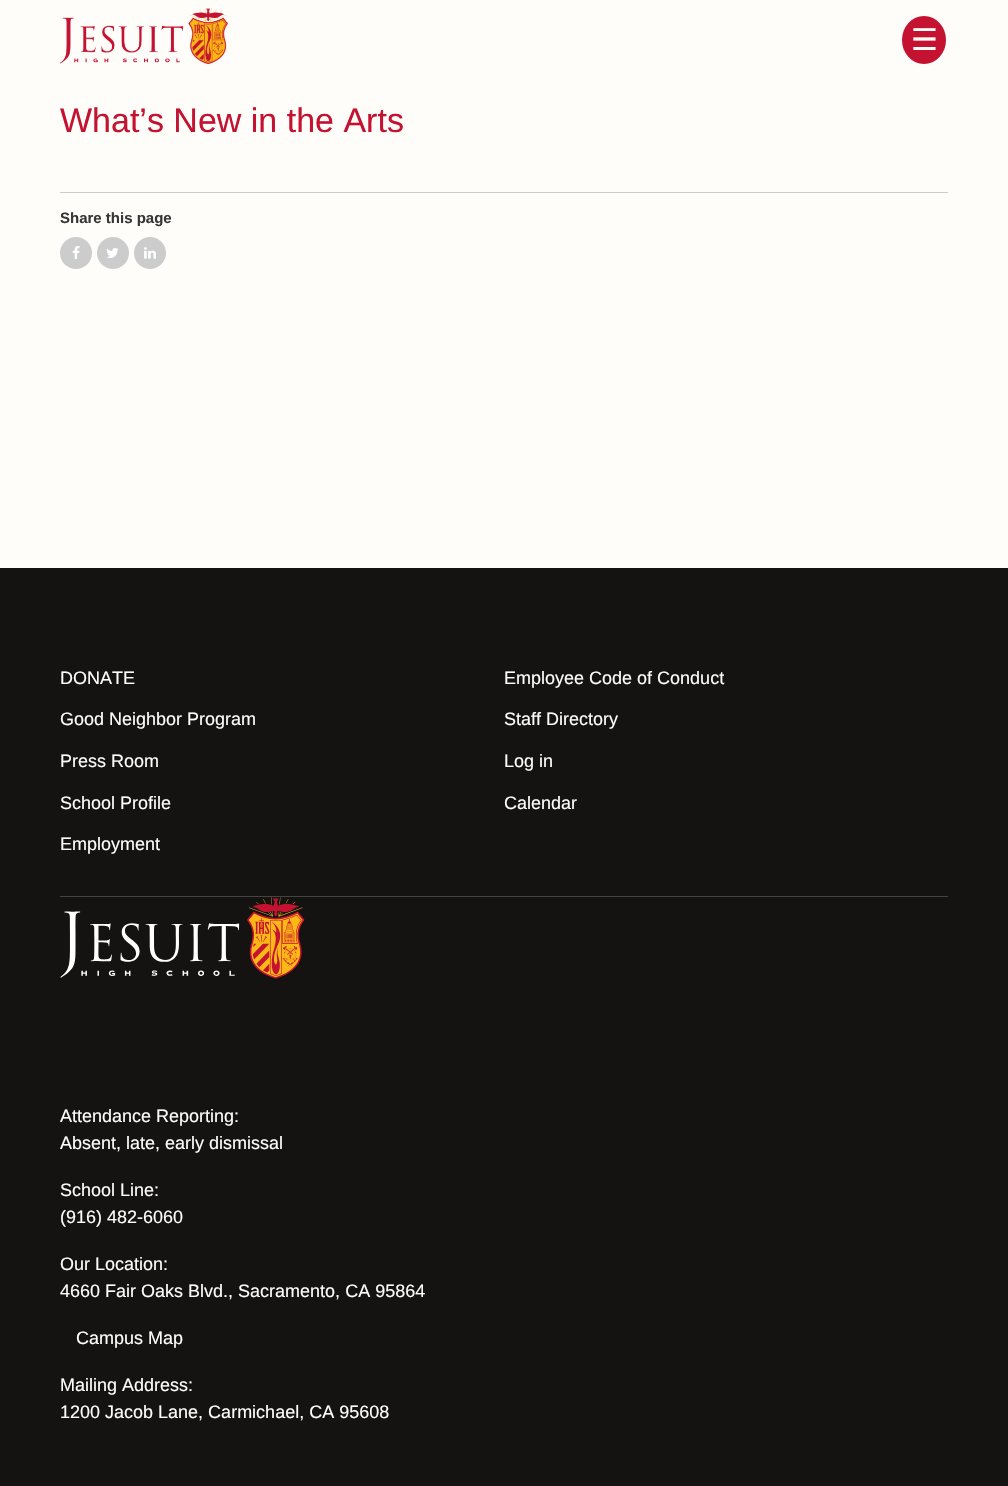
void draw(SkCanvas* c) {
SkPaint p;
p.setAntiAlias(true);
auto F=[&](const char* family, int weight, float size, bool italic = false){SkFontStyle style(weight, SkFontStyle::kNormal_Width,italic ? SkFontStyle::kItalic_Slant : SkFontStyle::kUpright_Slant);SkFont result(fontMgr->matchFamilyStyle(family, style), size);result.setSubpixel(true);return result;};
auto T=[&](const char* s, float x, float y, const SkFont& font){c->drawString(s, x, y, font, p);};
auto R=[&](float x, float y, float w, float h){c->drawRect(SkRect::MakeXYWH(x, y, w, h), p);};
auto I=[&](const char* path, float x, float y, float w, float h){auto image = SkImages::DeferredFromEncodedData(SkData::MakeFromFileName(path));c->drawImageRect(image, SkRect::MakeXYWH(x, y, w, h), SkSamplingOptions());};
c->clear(0xfffffdfa);
I("1.png",60,8,168,56);
p.setColor(0xffc41230);
c->drawOval(SkRect::MakeXYWH(902,16,44,48),p);
auto f1 = F("DejaVu Sans",400,30);
p.setColor(0xfffffdfa);
T("☰",911,50,f1);
auto f2 = F("Liberation Sans",400,34);
p.setColor(0xffc41230);
T("What’s New in the Arts",60,132,f2);
p.setColor(0xffcccccc);
R(60,192,888,1);
auto f3 = F("Liberation Sans",700,15);
p.setColor(0xff363636);
T("Share this page",60,223,f3);
p.setColor(0xffcccccc);
c->drawCircle(76,253,16,p);
I("2.png",72,246,8,13);
c->drawCircle(113,253,16,p);
I("3.png",106,248,13,10);
c->drawCircle(150,253,16,p);
I("4.png",144,247,12,12);
p.setColor(0xff141311);
R(0,568,1008,918);
p.setColor(0xff454441);
R(60,896,888,1);
auto f4 = F("Liberation Sans",400,18);
p.setColor(0xfffffdfa);
T("DONATE",60,684,f4);
T("Good Neighbor Program",60,725,f4);
T("Press Room",60,767,f4);
T("School Profile",60,809,f4);
T("Employment",60,850,f4);
T("Employee Code of Conduct",504,684,f4);
T("Staff Directory",504,725,f4);
T("Log in",504,767,f4);
T("Calendar",504,809,f4);
I("5.png",60,897,245,82);
T("Attendance Reporting:",60,1122,f4);
T("Absent, late, early dismissal",60,1149,f4);
T("School Line:",60,1196,f4);
T("(916) 482-6060",60,1223,f4);
T("Our Location:",60,1270,f4);
T("4660 Fair Oaks Blvd., Sacramento, CA 95864",60,1297,f4);
T("Campus Map",76,1344,f4);
T("Mailing Address:",60,1391,f4);
T("1200 Jacob Lane, Carmichael, CA 95608",60,1418,f4);
}
